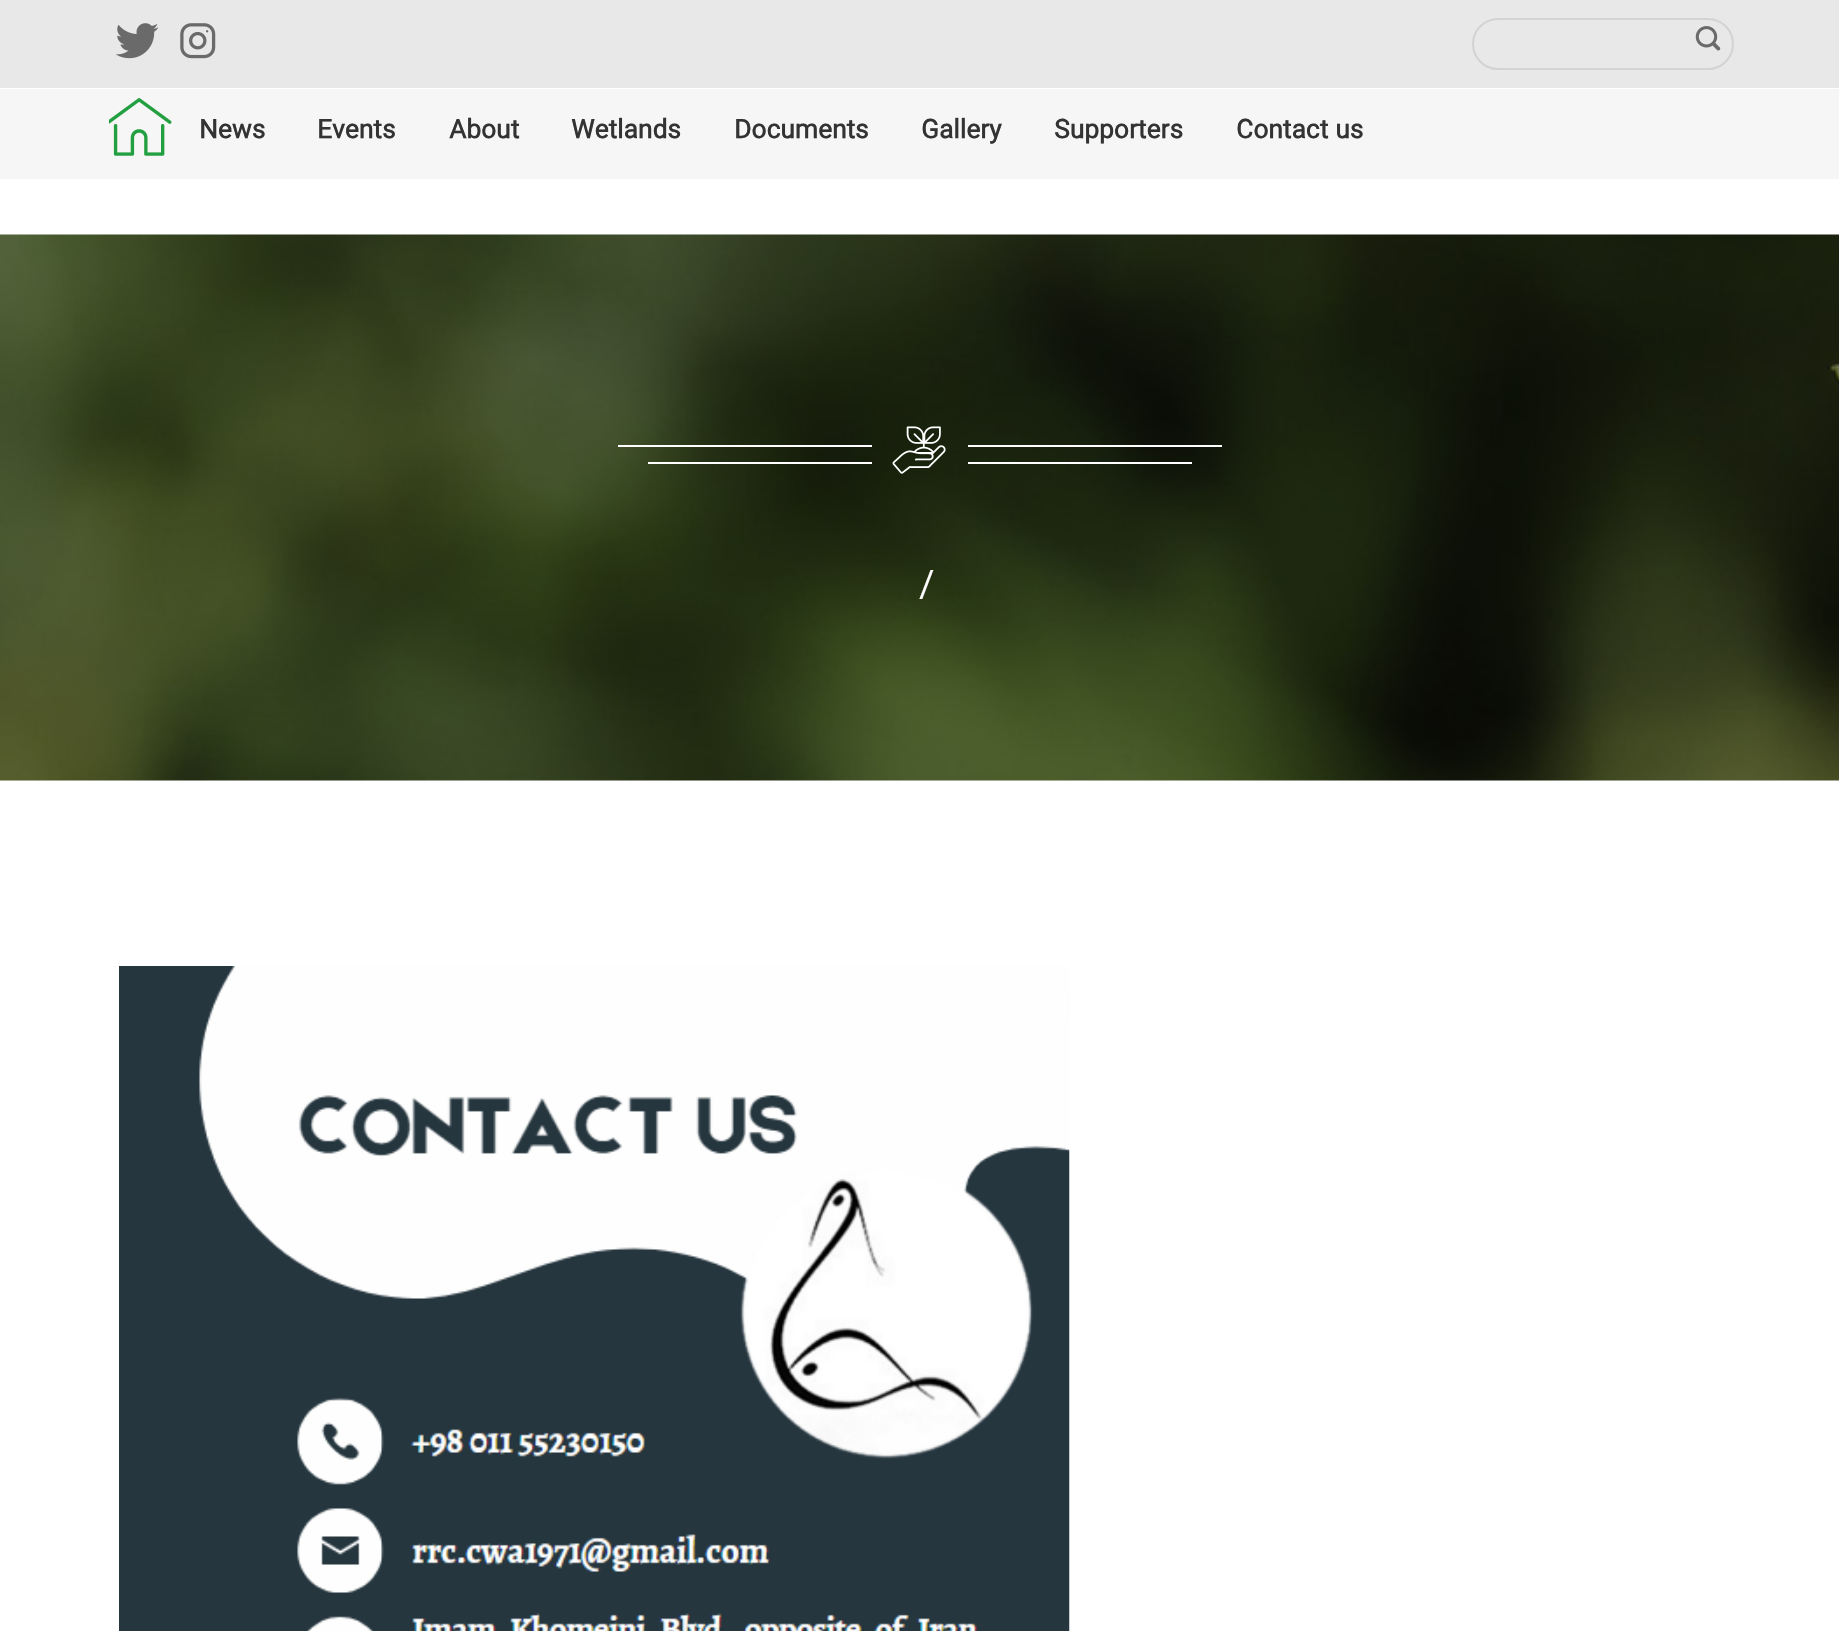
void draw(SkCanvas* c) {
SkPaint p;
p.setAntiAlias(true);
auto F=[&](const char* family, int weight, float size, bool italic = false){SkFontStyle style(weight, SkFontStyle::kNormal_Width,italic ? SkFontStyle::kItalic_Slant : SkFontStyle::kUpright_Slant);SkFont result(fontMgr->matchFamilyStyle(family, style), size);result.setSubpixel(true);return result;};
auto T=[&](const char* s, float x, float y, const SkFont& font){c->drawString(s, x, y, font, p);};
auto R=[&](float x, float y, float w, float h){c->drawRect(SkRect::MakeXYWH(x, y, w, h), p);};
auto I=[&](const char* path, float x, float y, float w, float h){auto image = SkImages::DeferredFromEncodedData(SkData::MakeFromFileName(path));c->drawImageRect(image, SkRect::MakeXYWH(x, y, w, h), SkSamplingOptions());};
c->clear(0xffffffff);
p.setColor(0xffe8e8e8);
R(0,0,1839,88);
I("1.png",115,23,44,36);
I("2.png",180,23,36,36);
p.setStroke(true);
p.setStrokeWidth(2);
p.setColor(0xffd3d3d3);
c->drawRoundRect(SkRect::MakeXYWH(1473,19,260,50),25,25,p);
I("3.png",1695,26,26,25);
p.setStroke(false);
p.setColor(0xfff6f6f6);
R(0,89,1839,90);
I("4.png",109,98,63,58);
auto f1 = F("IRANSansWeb",700,24.5);
p.setColor(0xff333333);
T("News",199,137,f1);
T("Events",317,137,f1);
T("About",449,137,f1);
T("Wetlands",571,137,f1);
T("Documents",734,137,f1);
T("Gallery",921,137,f1);
T("Supporters",1054,137,f1);
T("Contact us",1236,137,f1);
I("5.png",0,234,1839,547);
p.setColor(0xffffffff);
R(618,445,254,2);
R(648,462,224,2);
I("6.png",892,426,54,48);
R(968,445,254,2);
R(968,462,224,2);
auto f2 = F("IRANSansWeb",400,35);
T("/",919,595,f2);
I("7.png",119,966,951,665);
}
